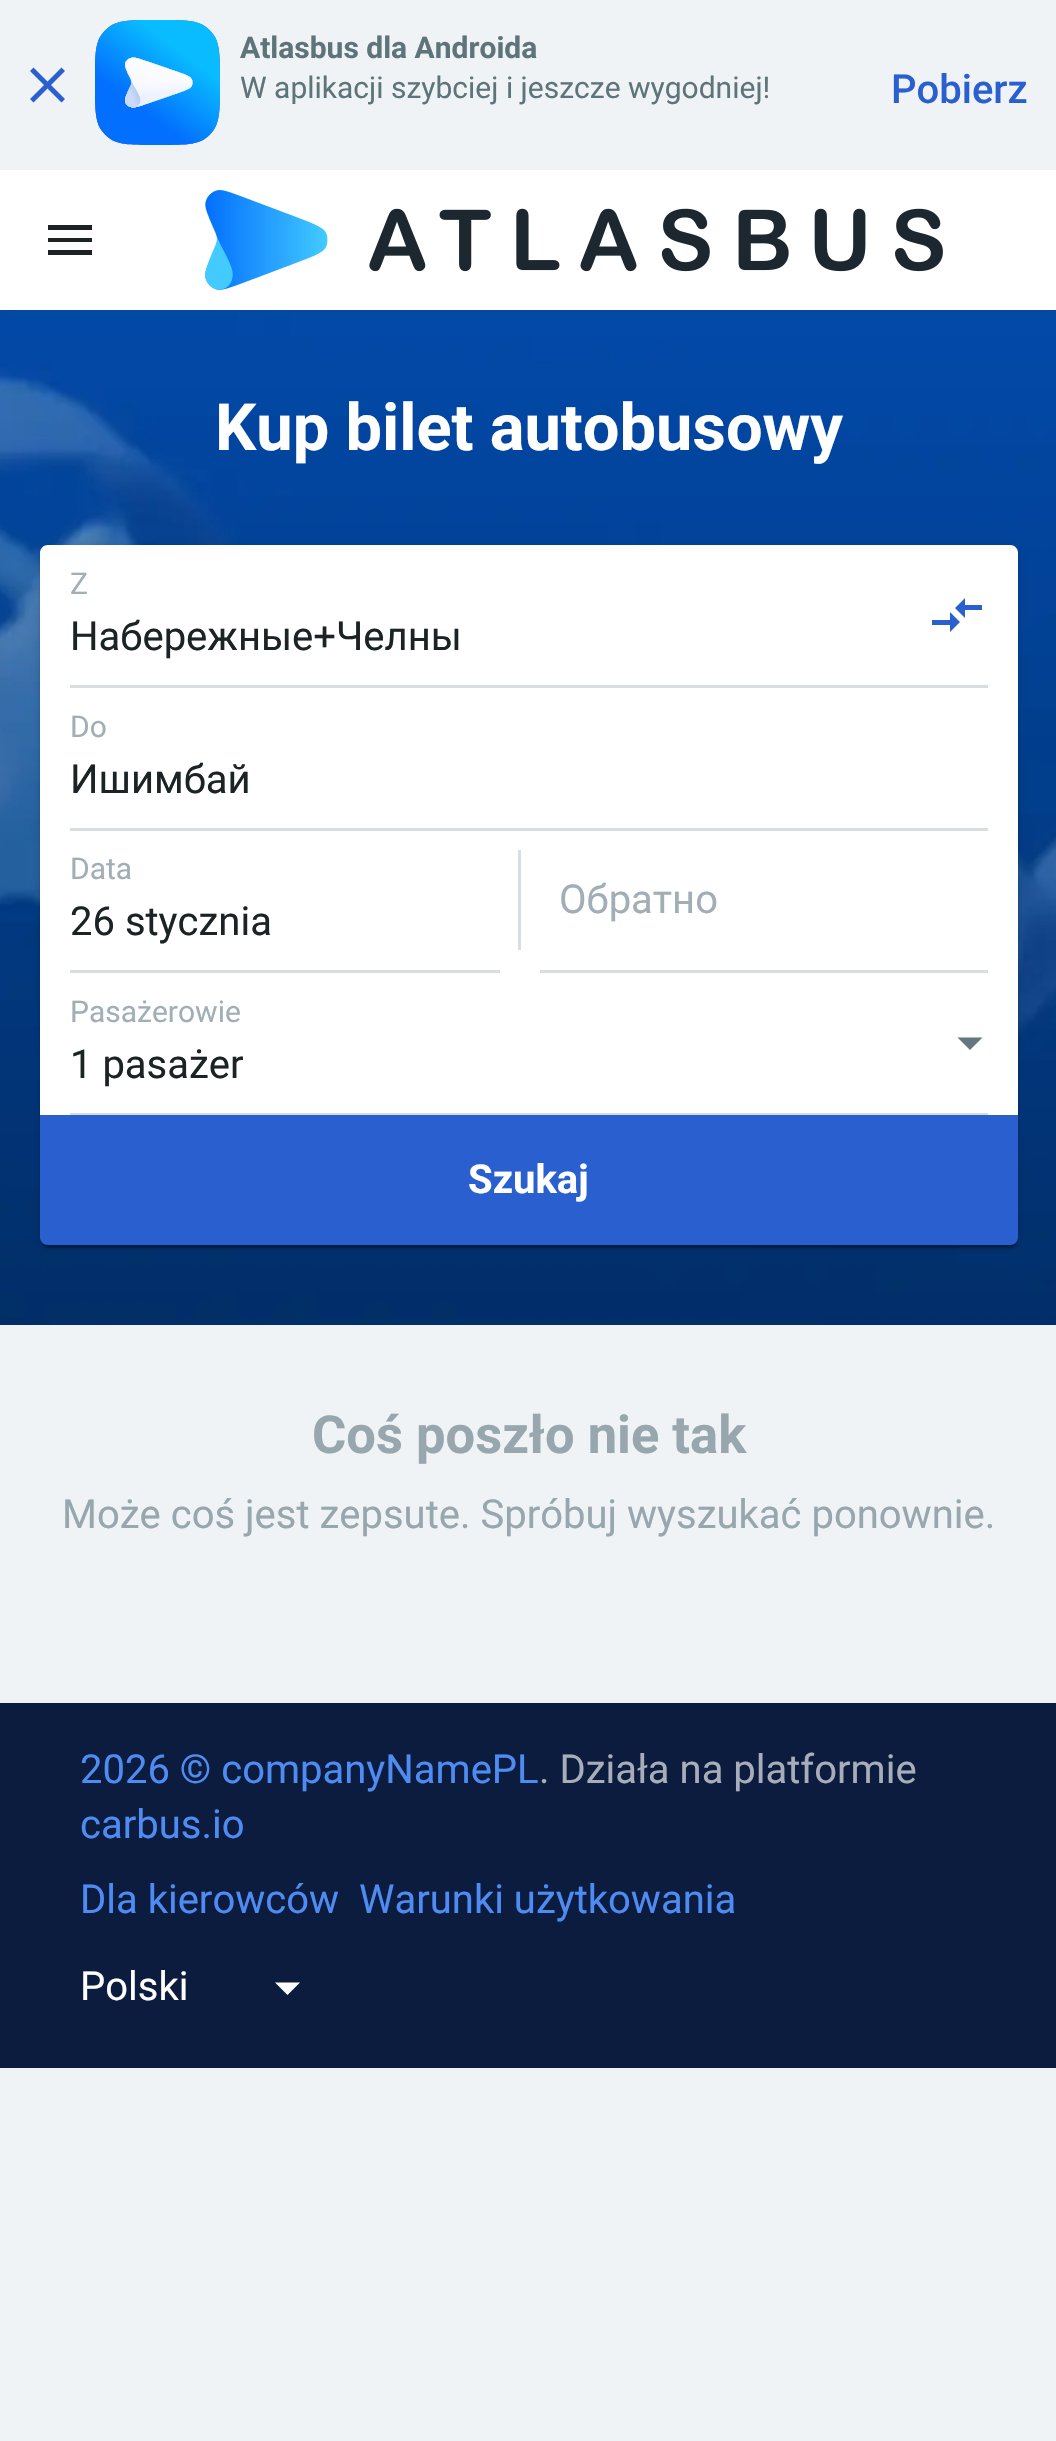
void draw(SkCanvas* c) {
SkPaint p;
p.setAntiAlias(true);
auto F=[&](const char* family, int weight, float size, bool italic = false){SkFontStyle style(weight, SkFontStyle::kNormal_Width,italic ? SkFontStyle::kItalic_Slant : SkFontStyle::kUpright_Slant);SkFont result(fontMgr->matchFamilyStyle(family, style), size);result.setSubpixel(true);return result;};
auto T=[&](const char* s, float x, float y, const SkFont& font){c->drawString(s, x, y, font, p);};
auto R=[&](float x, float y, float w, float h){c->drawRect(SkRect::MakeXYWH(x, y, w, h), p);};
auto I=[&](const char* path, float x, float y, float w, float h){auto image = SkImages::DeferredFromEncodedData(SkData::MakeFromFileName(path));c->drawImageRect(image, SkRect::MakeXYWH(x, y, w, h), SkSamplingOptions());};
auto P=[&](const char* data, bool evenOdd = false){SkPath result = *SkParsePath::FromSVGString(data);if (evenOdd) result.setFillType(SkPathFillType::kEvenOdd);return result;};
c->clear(0xfff0f3f5);
I("3.png",0,310,1056,1015);
p.setColor(0x2e084e68);
p.setMaskFilter(SkMaskFilter::MakeBlur(kNormal_SkBlurStyle, 2.5));
c->drawRect(SkRect::MakeXYWH(0,0,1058,310),p);
p.setMaskFilter(nullptr);
p.setColor(0x1f084e68);
p.setMaskFilter(SkMaskFilter::MakeBlur(kNormal_SkBlurStyle, 5));
c->drawRect(SkRect::MakeXYWH(0,5,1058,310),p);
p.setMaskFilter(nullptr);
p.setColor(0xffffffff);
R(0,170,1056,140);
p.setColor(0xff1b2325);
c->drawPath(P("M48 255h44v-5h-44zm0-13h44v-4h-44zm0-17v5h44v-5z"),p);
I("1.png",205,190,738,100);
p.setColor(0xfff0f3f5);
R(0,0,1056,170);
p.setColor(0xff2a5fcf);
c->drawPath(P("M65 71l-3.5-3.5l-14 14l-14-14l-3.5 3.5l14 14l-14 14l3.5 3.5l14-14l14 14l3.5-3.5l-14-14z"),p);
I("2.png",95,20,125,125);
auto f1 = F("Roboto",700,30);
p.setColor(0xff5e747b);
T("Atlasbus dla Androida",240,58,f1);
auto f2 = F("Roboto",400,30);
T("W aplikacji szybciej i jeszcze wygodniej!",240,98,f2);
auto f3 = F("Roboto",500,40);
p.setColor(0xff2a5fcf);
T("Pobierz",891,103,f3);
auto f4 = F("Roboto",700,65);
p.setColor(0xffffffff);
T("Kup bilet autobusowy",215,450,f4);
p.setColor(0x1f000000);
p.setMaskFilter(SkMaskFilter::MakeBlur(kNormal_SkBlurStyle, 4));
c->drawRoundRect(SkRect::MakeXYWH(40,548,978,700),8,8,p);
p.setMaskFilter(nullptr);
p.setColor(0x24000000);
p.setMaskFilter(SkMaskFilter::MakeBlur(kNormal_SkBlurStyle, 1));
c->drawRoundRect(SkRect::MakeXYWH(40,548,978,700),8,8,p);
p.setMaskFilter(nullptr);
p.setColor(0x33000000);
p.setMaskFilter(SkMaskFilter::MakeBlur(kNormal_SkBlurStyle, 1));
c->drawRoundRect(SkRect::MakeXYWH(43,553,972,695),5,5,p);
p.setMaskFilter(nullptr);
p.setColor(0xffffffff);
c->drawPath(P("M48 545h962c4.5 0 8 3.5 8 8v562h-978v-562c0-4.5 3.5-8 8-8z"),p);
p.setColor(0xffa1aeb5);
T("Z",70,594,f2);
p.setColor(0xff2a5fcf);
c->drawPath(P("M950 620h-18v5h18v7l10-10l-10-10zm15-2v-8h17v-5h-17v-7l-10 10z"),p);
auto f5 = F("Roboto",400,40);
p.setColor(0xff1b2325);
T("Набережные+Челны",70,650,f5);
p.setColor(0xffd7dde0);
R(70,685,918,3);
p.setColor(0xffa1aeb5);
T("Do",70,737,f2);
p.setColor(0xff1b2325);
T("Ишимбай",70,793,f5);
p.setColor(0xffd7dde0);
R(70,828,918,3);
p.setColor(0xffa1aeb5);
T("Data",70,879,f2);
p.setColor(0xff1b2325);
T("26 stycznia",70,935,f5);
p.setColor(0xffd7dde0);
R(518,850,3,100);
R(70,970,430,3);
p.setColor(0xffa1aeb5);
T("Обратно",559,913,f5);
p.setColor(0xffd7dde0);
R(540,970,448,3);
p.setColor(0xffa1aeb5);
T("Pasażerowie",70,1022,f2);
p.setColor(0xff64787f);
c->drawPath(P("M957.5 1037.5l12.5 12.5l12.5-12.5z"),p);
p.setColor(0xff1b2325);
T("1 pasażer",70,1078,f5);
p.setColor(0x29032c3b);
R(70,1113,918,2);
p.setColor(0xff2a5fcf);
c->drawPath(P("M40 1115h978v122c0 4.5-3.5 8-8 8h-962c-4.5 0-8-3.5-8-8z"),p);
auto f6 = F("Roboto",700,40);
p.setColor(0xffffffff);
T("Szukaj",468,1193,f6);
auto f7 = F("Roboto",700,52.5);
p.setColor(0xff98a6ae);
T("Coś poszło nie tak",312,1453,f7);
T("Może coś jest zepsute. Spróbuj wyszukać ponownie.",62,1528,f5);
p.setColor(0xff0c1c3e);
R(0,1703,1056,365);
p.setColor(0xff4e8bf3);
T("2026 © companyNamePL",80,1783,f5);
p.setColor(0xffa8adba);
T(". Działa na platformie",539,1783,f5);
p.setColor(0xff4e8bf3);
T("carbus.io",80,1838,f5);
T("Dla kierowców",80,1913,f5);
T("Warunki użytkowania",359,1913,f5);
p.setColor(0xffffffff);
T("Polski",80,2000,f5);
c->drawPath(P("M275 1982.5l12.5 12.5l12.5-12.5z"),p);
}
